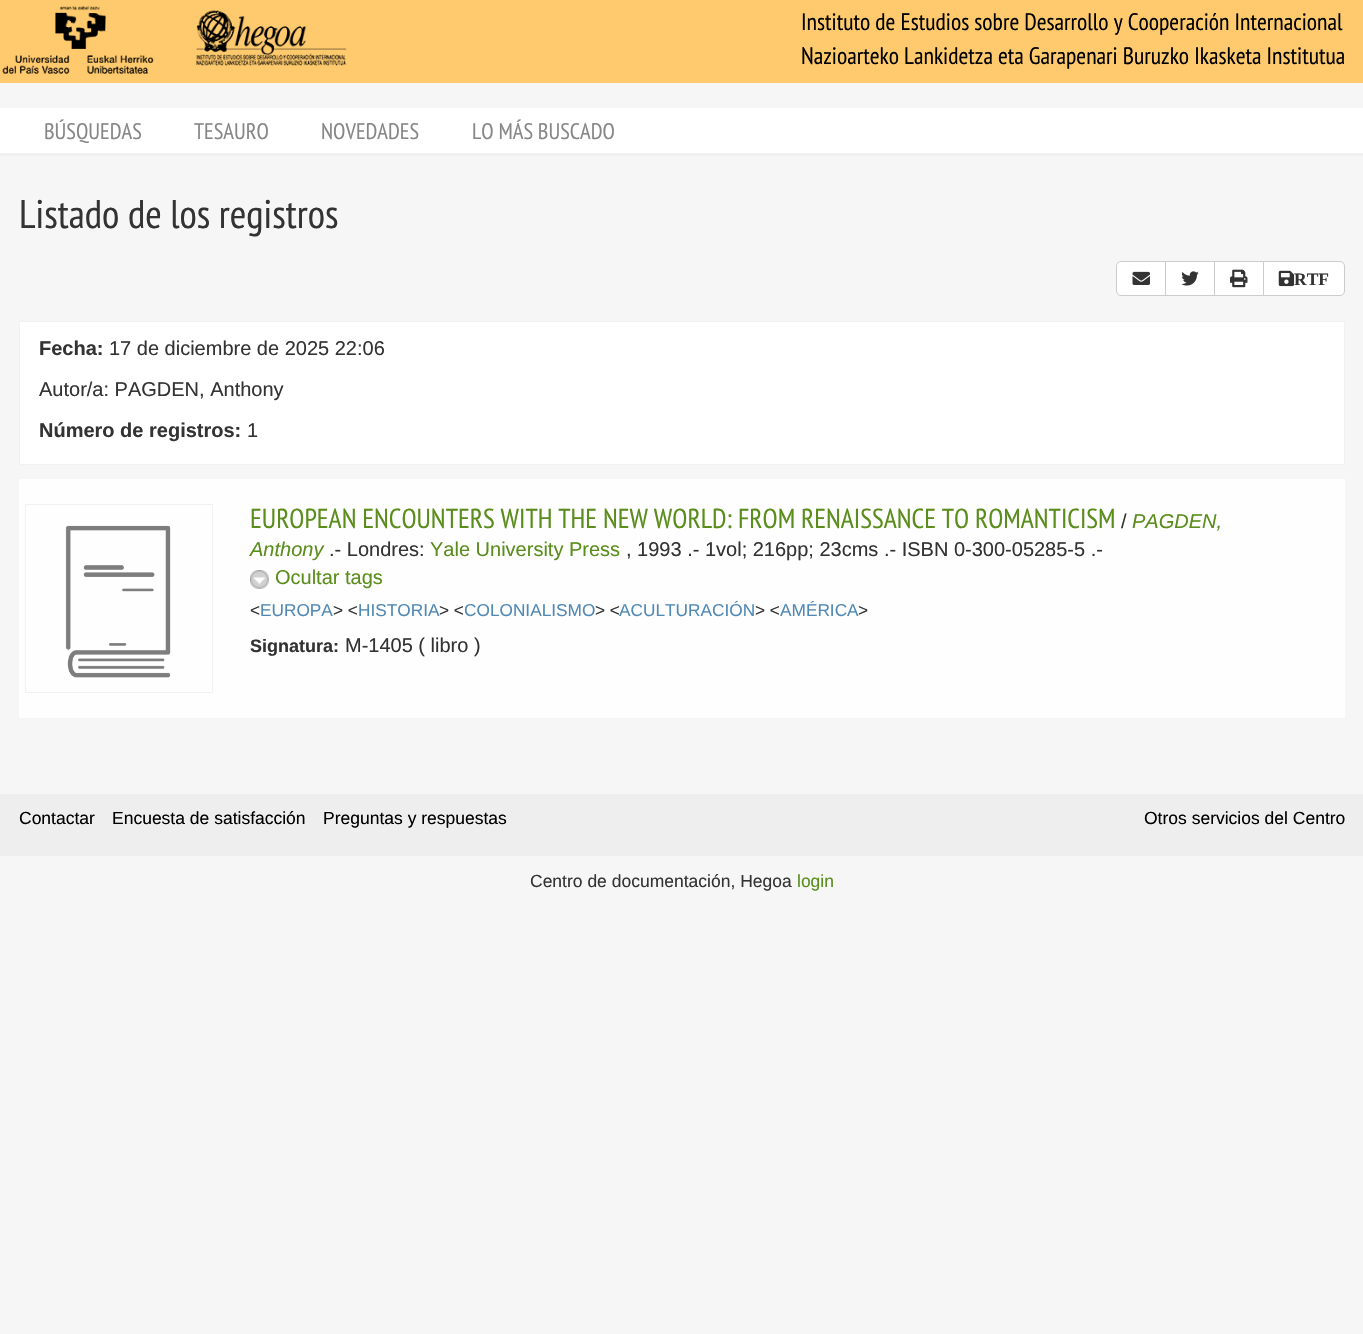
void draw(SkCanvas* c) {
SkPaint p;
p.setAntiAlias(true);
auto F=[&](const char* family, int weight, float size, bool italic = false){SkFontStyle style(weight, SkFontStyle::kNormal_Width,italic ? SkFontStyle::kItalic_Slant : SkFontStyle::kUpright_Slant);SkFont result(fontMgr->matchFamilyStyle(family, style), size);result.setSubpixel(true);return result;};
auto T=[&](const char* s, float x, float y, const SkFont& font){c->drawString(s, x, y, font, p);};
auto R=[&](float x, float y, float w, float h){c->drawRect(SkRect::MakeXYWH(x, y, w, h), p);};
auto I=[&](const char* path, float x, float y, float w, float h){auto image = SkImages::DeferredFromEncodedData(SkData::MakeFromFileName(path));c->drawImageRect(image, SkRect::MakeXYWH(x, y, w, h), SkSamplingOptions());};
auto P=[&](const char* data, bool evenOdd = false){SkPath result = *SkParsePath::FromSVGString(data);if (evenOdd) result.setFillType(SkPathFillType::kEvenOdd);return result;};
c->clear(0xfff6f6f6);
p.setColor(0xffffca6d);
R(0,0,1363,83);
I("1.png",2,6,345,68);
auto f1 = F("PT Sans Narrow",400,23.75);
p.setColor(0xff000000);
T("Instituto de Estudios sobre Desarrollo y Cooperación Internacional",801,30,f1);
T("Nazioarteko Lankidetza eta Garapenari Buruzko Ikasketa Institutua",801,64,f1);
p.setColor(0xffffffff);
R(0,108,1363,45);
p.setColor(0xfff1f1f1);
R(0,153,1363,3);
auto f2 = F("PT Sans Narrow",400,22.5);
p.setColor(0xff878787);
T("BÚSQUEDAS",44,139,f2);
T("TESAURO",194,139,f2);
T("NOVEDADES",321,139,f2);
T("LO MÁS BUSCADO",472,139,f2);
auto f3 = F("PT Sans Narrow",400,40);
p.setColor(0xff333333);
T("Listado de los registros",19,228,f3);
p.setColor(0xffffffff);
c->drawPath(P("M1121 261.5h44.5v34h-44.5c-2.5 0-4.5-2-4.5-4.5v-25c0-2.5 2-4.5 4.5-4.5z"),p);
p.setStroke(true);
p.setStrokeWidth(1);
p.setColor(0xffcccccc);
c->drawPath(P("M1121 261.5h44.5v34h-44.5c-2.5 0-4.5-2-4.5-4.5v-25c0-2.5 2-4.5 4.5-4.5z"),p);
I("2.png",1132,271,18,14);
p.setStroke(false);
p.setColor(0xffffffff);
c->drawRect(SkRect::MakeXYWH(1165.5,261.5,49,34),p);
p.setStroke(true);
p.setColor(0xffcccccc);
c->drawRect(SkRect::MakeXYWH(1165.5,261.5,49,34),p);
I("3.png",1181,271,18,15);
p.setStroke(false);
p.setColor(0xffffffff);
c->drawRect(SkRect::MakeXYWH(1214.5,261.5,49,34),p);
p.setStroke(true);
p.setColor(0xffcccccc);
c->drawRect(SkRect::MakeXYWH(1214.5,261.5,49,34),p);
I("4.png",1230,269,18,19);
p.setStroke(false);
p.setColor(0xffffffff);
c->drawPath(P("M1263.5 261.5h76.5c2.5 0 4.5 2 4.5 4.5v25c0 2.5-2 4.5-4.5 4.5h-76.5z"),p);
p.setStroke(true);
p.setColor(0xffcccccc);
c->drawPath(P("M1263.5 261.5h76.5c2.5 0 4.5 2 4.5 4.5v25c0 2.5-2 4.5-4.5 4.5h-76.5z"),p);
I("5.png",1278,270,17,17);
auto f4 = F("Liberation Serif",700,17.5);
p.setStroke(false);
p.setColor(0xff333333);
T("RTF",1294,285,f4);
p.setColor(0xffffffff);
c->drawRect(SkRect::MakeXYWH(19.5,321.5,1325,143),p);
p.setStroke(true);
p.setColor(0xfff1f1f1);
c->drawRect(SkRect::MakeXYWH(19.5,321.5,1325,143),p);
auto f5 = F("Liberation Sans",700,20);
p.setStroke(false);
p.setColor(0xff333333);
T("Fecha:",39,355,f5);
auto f6 = F("Liberation Sans",400,20);
T("17 de diciembre de 2025 22:06",109,355,f6);
T("Autor/a: PAGDEN, Anthony",39,396,f6);
T("Número de registros:",39,437,f5);
T("1",247,437,f6);
p.setColor(0xfffefefe);
R(19,479,1326,239);
p.setStroke(true);
p.setColor(0xfff1f1f1);
c->drawRect(SkRect::MakeXYWH(25.5,504.5,187,188),p);
I("6.png",65,525,106,153);
auto f7 = F("PT Sans Narrow",400,27.5);
p.setStroke(false);
p.setColor(0xff5a8d1b);
T("EUROPEAN ENCOUNTERS WITH THE NEW WORLD: FROM RENAISSANCE TO ROMANTICISM",250,528,f7);
p.setColor(0xff333333);
T("/",1121,528,f6);
auto f8 = F("Liberation Sans",400,20,true);
p.setColor(0xff5a8d1b);
T("PAGDEN,",1132,528,f8);
T("Anthony",250,556,f8);
p.setColor(0xff333333);
T(".- Londres:",329,556,f6);
p.setColor(0xff5a8d1b);
T("Yale University Press",430,556,f6);
p.setColor(0xff333333);
T(", 1993 .- 1vol; 216pp; 23cms .- ISBN 0-300-05285-5 .-",626,556,f6);
I("7.png",250,570,19,19);
p.setColor(0xff5a8d1b);
T("Ocultar tags",275,584,f6);
auto f9 = F("Liberation Sans",400,17.25);
p.setColor(0xff333333);
T("<",250,616,f9);
p.setColor(0xff5189b5);
T("EUROPA",260,616,f9);
p.setColor(0xff333333);
T("> <",333,616,f9);
p.setColor(0xff5189b5);
T("HISTORIA",358,616,f9);
p.setColor(0xff333333);
T("> <",439,616,f9);
p.setColor(0xff5189b5);
T("COLONIALISMO",464,616,f9);
p.setColor(0xff333333);
T("> <",595,616,f9);
p.setColor(0xff5189b5);
T("ACULTURACIÓN",619,616,f9);
p.setColor(0xff333333);
T("> <",755,616,f9);
p.setColor(0xff5189b5);
T("AMÉRICA",780,616,f9);
p.setColor(0xff333333);
T(">",858,616,f9);
auto f10 = F("Liberation Sans",700,18);
T("Signatura:",250,652,f10);
T("M-1405 ( libro )",345,652,f6);
p.setColor(0xffeeeeee);
R(0,794,1363,62);
auto f11 = F("Liberation Sans",400,17.5);
p.setColor(0xff000000);
T("Contactar",19,824,f11);
T("Encuesta de satisfacción",112,824,f11);
T("Preguntas y respuestas",323,824,f11);
T("Otros servicios del Centro",1144,824,f11);
p.setColor(0xff333333);
T("Centro de documentación, Hegoa",530,887,f11);
p.setColor(0xff5a8d1b);
T("login",797,887,f11);
}
